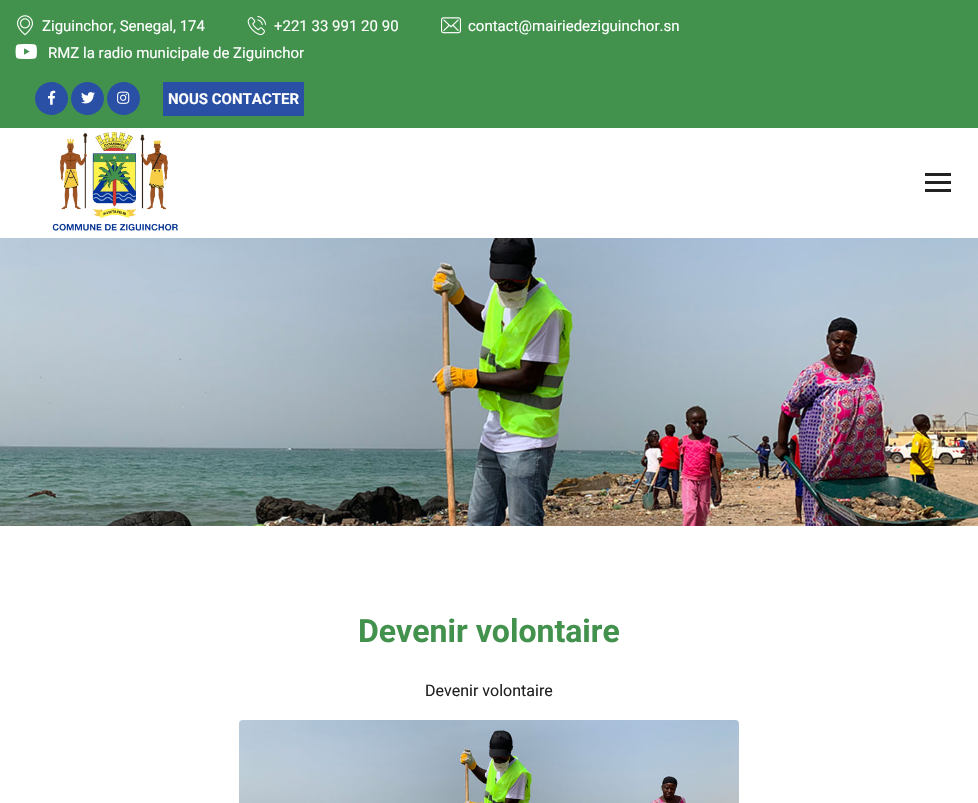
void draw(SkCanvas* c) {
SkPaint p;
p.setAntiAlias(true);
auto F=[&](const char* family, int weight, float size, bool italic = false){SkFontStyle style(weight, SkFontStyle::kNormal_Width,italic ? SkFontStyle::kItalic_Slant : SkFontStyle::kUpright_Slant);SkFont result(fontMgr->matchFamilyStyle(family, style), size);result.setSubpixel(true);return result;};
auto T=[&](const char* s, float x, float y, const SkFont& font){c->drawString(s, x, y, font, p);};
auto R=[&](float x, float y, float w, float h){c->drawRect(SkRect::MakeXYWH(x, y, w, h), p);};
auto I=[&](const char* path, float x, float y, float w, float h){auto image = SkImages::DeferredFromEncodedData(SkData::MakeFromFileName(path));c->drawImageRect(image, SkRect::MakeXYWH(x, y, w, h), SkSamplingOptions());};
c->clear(0xffffffff);
p.setColor(0xff42924d);
R(0,0,978,128);
I("1.png",17,15,16,21);
auto f1 = F("Roboto",400,15);
p.setColor(0xffffffff);
T("Ziguinchor, Senegal, 174",42,31,f1);
I("2.png",247,16,20,20);
T("+221 33 991 20 90",274,31,f1);
I("3.png",441,17,20,17);
T("contact@mairiedeziguinchor.sn",468,31,f1);
I("4.png",15,44,22,15);
T("RMZ la radio municipale de Ziguinchor",48,58,f1);
p.setColor(0xff2950a4);
c->drawCircle(51.5,98.5,16.5,p);
I("5.png",48,90,8,15);
c->drawCircle(87.5,98.5,16.5,p);
I("6.png",81,92,14,12);
c->drawCircle(123.5,98.5,16.5,p);
I("7.png",117,91,13,13);
R(163,82,141,34);
auto f2 = F("Roboto",700,15);
p.setColor(0xffffffff);
T("NOUS CONTACTER",168,104,f2);
I("8.png",52,132,126,99);
I("9.png",925,173,26,19);
I("10.png",0,238,978,288);
p.setColor(0x1f091d3e);
p.setMaskFilter(SkMaskFilter::MakeBlur(kNormal_SkBlurStyle, 41.5));
c->drawRect(SkRect::MakeXYWH(0,531,978,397),p);
p.setMaskFilter(nullptr);
p.setColor(0xffffffff);
R(0,526,978,277);
auto f3 = F("Roboto",700,32);
p.setColor(0xff42924e);
T("Devenir volontaire",358,642,f3);
auto f4 = F("Roboto",400,16);
p.setColor(0xff222222);
T("Devenir volontaire",425,696,f4);
I("11.png",239,720,500,83);
}
